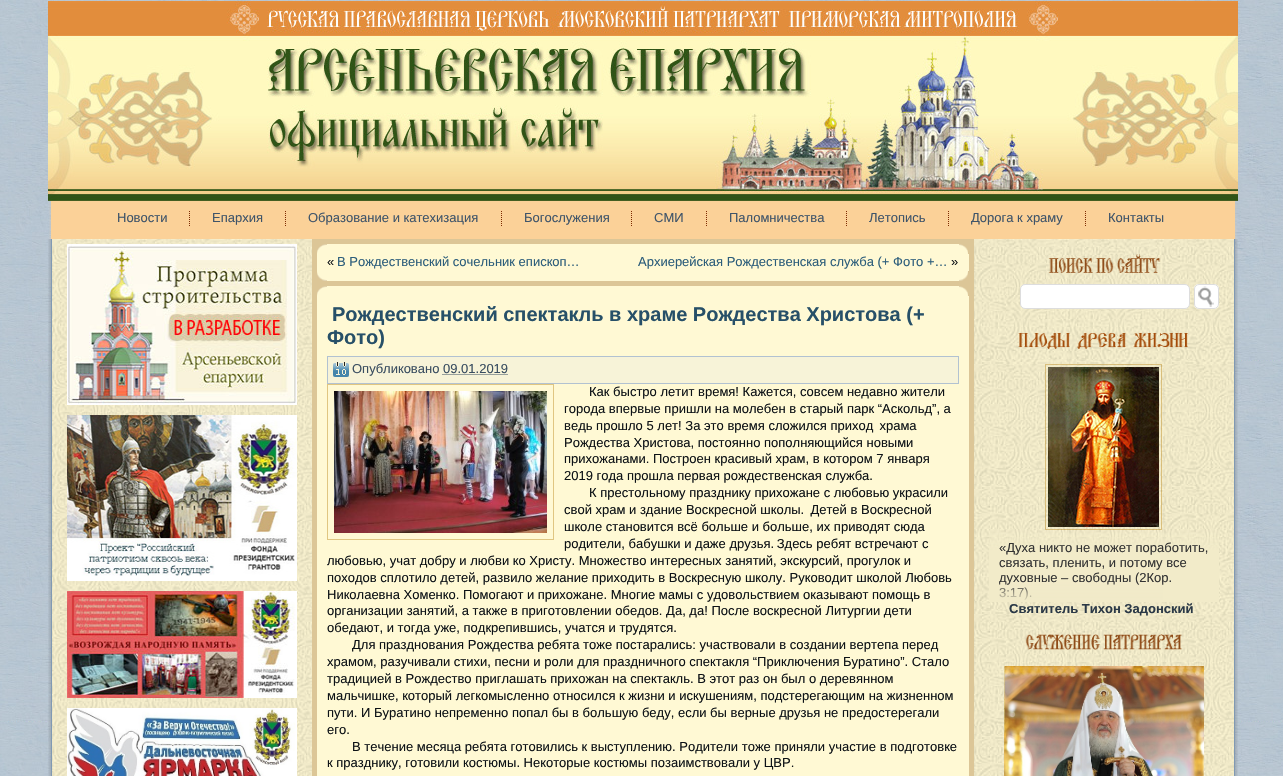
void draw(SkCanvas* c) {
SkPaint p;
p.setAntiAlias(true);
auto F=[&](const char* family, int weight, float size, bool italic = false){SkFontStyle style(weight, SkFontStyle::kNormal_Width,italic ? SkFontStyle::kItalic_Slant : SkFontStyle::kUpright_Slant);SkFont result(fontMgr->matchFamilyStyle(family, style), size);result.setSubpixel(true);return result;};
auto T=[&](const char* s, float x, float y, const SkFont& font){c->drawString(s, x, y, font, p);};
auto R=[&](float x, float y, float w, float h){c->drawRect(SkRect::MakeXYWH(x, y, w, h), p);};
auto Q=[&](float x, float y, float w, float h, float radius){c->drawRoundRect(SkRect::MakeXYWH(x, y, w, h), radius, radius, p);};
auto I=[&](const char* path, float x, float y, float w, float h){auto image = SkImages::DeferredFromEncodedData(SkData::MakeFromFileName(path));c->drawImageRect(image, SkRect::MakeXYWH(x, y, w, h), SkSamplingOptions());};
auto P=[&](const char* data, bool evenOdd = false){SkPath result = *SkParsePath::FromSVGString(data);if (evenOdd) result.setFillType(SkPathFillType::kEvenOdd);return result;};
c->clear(0xffffffff);
I("1.png",0,0,1283,776);
I("2.png",48,1,1190,200);
I("3.png",49,201,1182,38);
I("4.png",1231,201,6,38);
auto f1 = F("Liberation Sans",400,13);
p.setColor(0xff3f5469);
T("Новости",117,222,f1);
I("5.png",189,211,1,15);
T("Епархия",212,222,f1);
I("5.png",285,211,1,15);
T("Образование и катехизация",308,222,f1);
I("5.png",501,211,1,15);
T("Богослужения",524,222,f1);
I("5.png",631,211,1,15);
T("СМИ",654,222,f1);
I("5.png",706,211,1,15);
T("Паломничества",729,222,f1);
I("5.png",846,211,1,15);
T("Летопись",869,222,f1);
I("5.png",948,211,1,15);
T("Дорога к храму",971,222,f1);
I("5.png",1085,211,1,15);
T("Контакты",1108,222,f1);
I("6.png",48,239,4,13);
I("7.png",1234,239,4,13);
I("8.png",48,252,4,524);
p.setColor(0xffdcc697);
R(312,239,662,537);
I("9.png",52,239,260,537);
I("10.png",67,244,230,161);
I("11.png",67,415,230,166);
I("12.png",67,591,230,107);
I("13.png",67,708,230,68);
I("14.png",317,244,10,10);
p.setColor(0xfffff9d4);
R(327,244,632,10);
I("15.png",959,244,9,10);
R(317,254,10,17);
R(327,254,642,17);
p.setColor(0xff0d1216);
T("«",327,266,f1);
p.setColor(0xff2d5e7b);
T("В Рождественский сочельник епископ…",337,266,f1);
T("Архиерейская Рождественская служба (+ Фото +…",638,266,f1);
p.setColor(0xff0d1216);
T("»",951,266,f1);
I("16.png",317,271,10,10);
p.setColor(0xfffff9d4);
R(327,271,632,10);
I("17.png",959,271,9,10);
I("14.png",317,286,10,10);
R(327,286,632,10);
I("15.png",959,286,9,10);
R(317,296,10,480);
R(327,296,642,480);
auto f2 = F("Liberation Sans",700,20);
p.setColor(0xff275068);
T("Рождественский спектакль в храме Рождества Христова (+",332,321,f2);
T("Фото)",327,344,f2);
p.setColor(0xfff7f3d8);
c->drawRect(SkRect::MakeXYWH(327.5,356.5,631,27),p);
p.setStroke(true);
p.setStrokeWidth(1);
p.setColor(0xffb2c2d1);
c->drawRect(SkRect::MakeXYWH(327.5,356.5,631,27),p);
I("18.png",333,362,16,15);
p.setStroke(false);
p.setColor(0xff394d60);
T("Опубликовано 09.01.2019",352,373,f1);
p.setStroke(true);
p.setPathEffect(SkDashPathEffect::Make({{1,1}}, 0));
c->drawPath(P("M442.5 374.5h65"),p);
p.setPathEffect(nullptr);
p.setColor(0xffe0c681);
c->drawRect(SkRect::MakeXYWH(327.5,384.5,226,155),p);
I("19.png",334,391,213,142);
p.setStroke(false);
p.setColor(0xff0d1216);
T("Как быстро летит время! Кажется, совсем недавно жители",589,396,f1);
T("города впервые пришли на молебен в старый парк “Аскольд”, а",564,413,f1);
T("ведь прошло 5 лет! За это время сложился приход  храма",564,430,f1);
T("Рождества Христова, постоянно пополняющийся новыми",564,447,f1);
T("прихожанами. Построен красивый храм, в котором 7 января",564,463,f1);
T("2019 года прошла первая рождественская служба.",564,480,f1);
T("К престольному празднику прихожане с любовью украсили",589,497,f1);
T("свой храм и здание Воскресной школы.  Детей в Воскресной",564,514,f1);
T("школе становится всё больше и больше, их приводят сюда",564,531,f1);
T("родители, бабушки и даже друзья. Здесь ребят встречают с",564,548,f1);
T("любовью, учат добру и любви ко Христу. Множество интересных занятий, экскурсий, прогулок и",327,565,f1);
T("походов сплотило детей, развило желание приходить в Воскресную школу. Руководит школой Любовь",327,582,f1);
T("Николаевна Хоменко. Помогают и прихожане. Многие мамы с удовольствием оказывают помощь в",327,599,f1);
T("организации занятий, а также в приготовлении обедов. Да, да! После воскресной Литургии дети",327,615,f1);
T("обедают, и тогда уже, подкрепившись, учатся и трудятся.",327,632,f1);
T("Для празднования Рождества ребята тоже постарались: участвовали в создании вертепа перед",352,649,f1);
T("храмом, разучивали стихи, песни и роли для праздничного спектакля “Приключения Буратино”. Стало",327,666,f1);
T("традицией в Рождество приглашать прихожан на спектакль. В этот раз он был о деревянном",327,683,f1);
T("мальчишке, который легкомысленно относился к жизни и искушениям, подстерегающим на жизненном",327,700,f1);
T("пути. И Буратино непременно попал бы в большую беду, если бы верные друзья не предостерегали",327,717,f1);
T("его.",327,734,f1);
T("В течение месяца ребята готовились к выступлению. Родители тоже приняли участие в подготовке",352,751,f1);
T("к празднику, готовили костюмы. Некоторые костюмы позаимствовали у ЦВР.",327,767,f1);
I("20.png",974,239,260,537);
I("21.png",1048,254,113,19);
p.setColor(0xffffffff);
c->drawRoundRect(SkRect::MakeXYWH(1020.5,284.5,169,24),4.5,4.5,p);
p.setStroke(true);
p.setColor(0xffdddddd);
c->drawRoundRect(SkRect::MakeXYWH(1020.5,284.5,169,24),4.5,4.5,p);
p.setStroke(false);
p.setColor(0xffffffff);
Q(1194,284,25,25,5);
I("22.png",1198,286,16,21);
p.setStroke(true);
p.setColor(0xffdddddd);
c->drawRoundRect(SkRect::MakeXYWH(1194.5,284.5,24,24),4.5,4.5,p);
I("23.png",1018,333,170,16);
p.setColor(0x6eb68212);
c->drawRect(SkRect::MakeXYWH(1045.5,364.5,116,165),p);
I("24.png",1048,367,111,160);
p.setStroke(false);
p.setColor(0xff333333);
T("«Духа никто не может поработить,",999,552,f1);
T("связать, пленить, и потому все",999,567,f1);
T("духовные – свободны (2Кор.",999,582,f1);
T("3:17).",999,597,f1);
{
const SkColor colors[] = {0x00f0e9c8,0xfff0e9c8};
const float stops[] = {0,1};
const SkPoint ends[] = {{1114,582}, {1114,602}};
p.setShader(SkGradientShader::MakeLinear(ends, colors, stops, 2, SkTileMode::kClamp));
p.setAlpha(255);
}
R(999,582,164,18);
auto f3 = F("Liberation Sans",700,13);
p.setShader(nullptr);
p.setColor(0xff2a3846);
T("Святитель Тихон Задонский",1009,613,f3);
I("25.png",1025,634,158,16);
I("26.png",1004,666,200,110);
I("27.png",1234,252,4,524);
}
